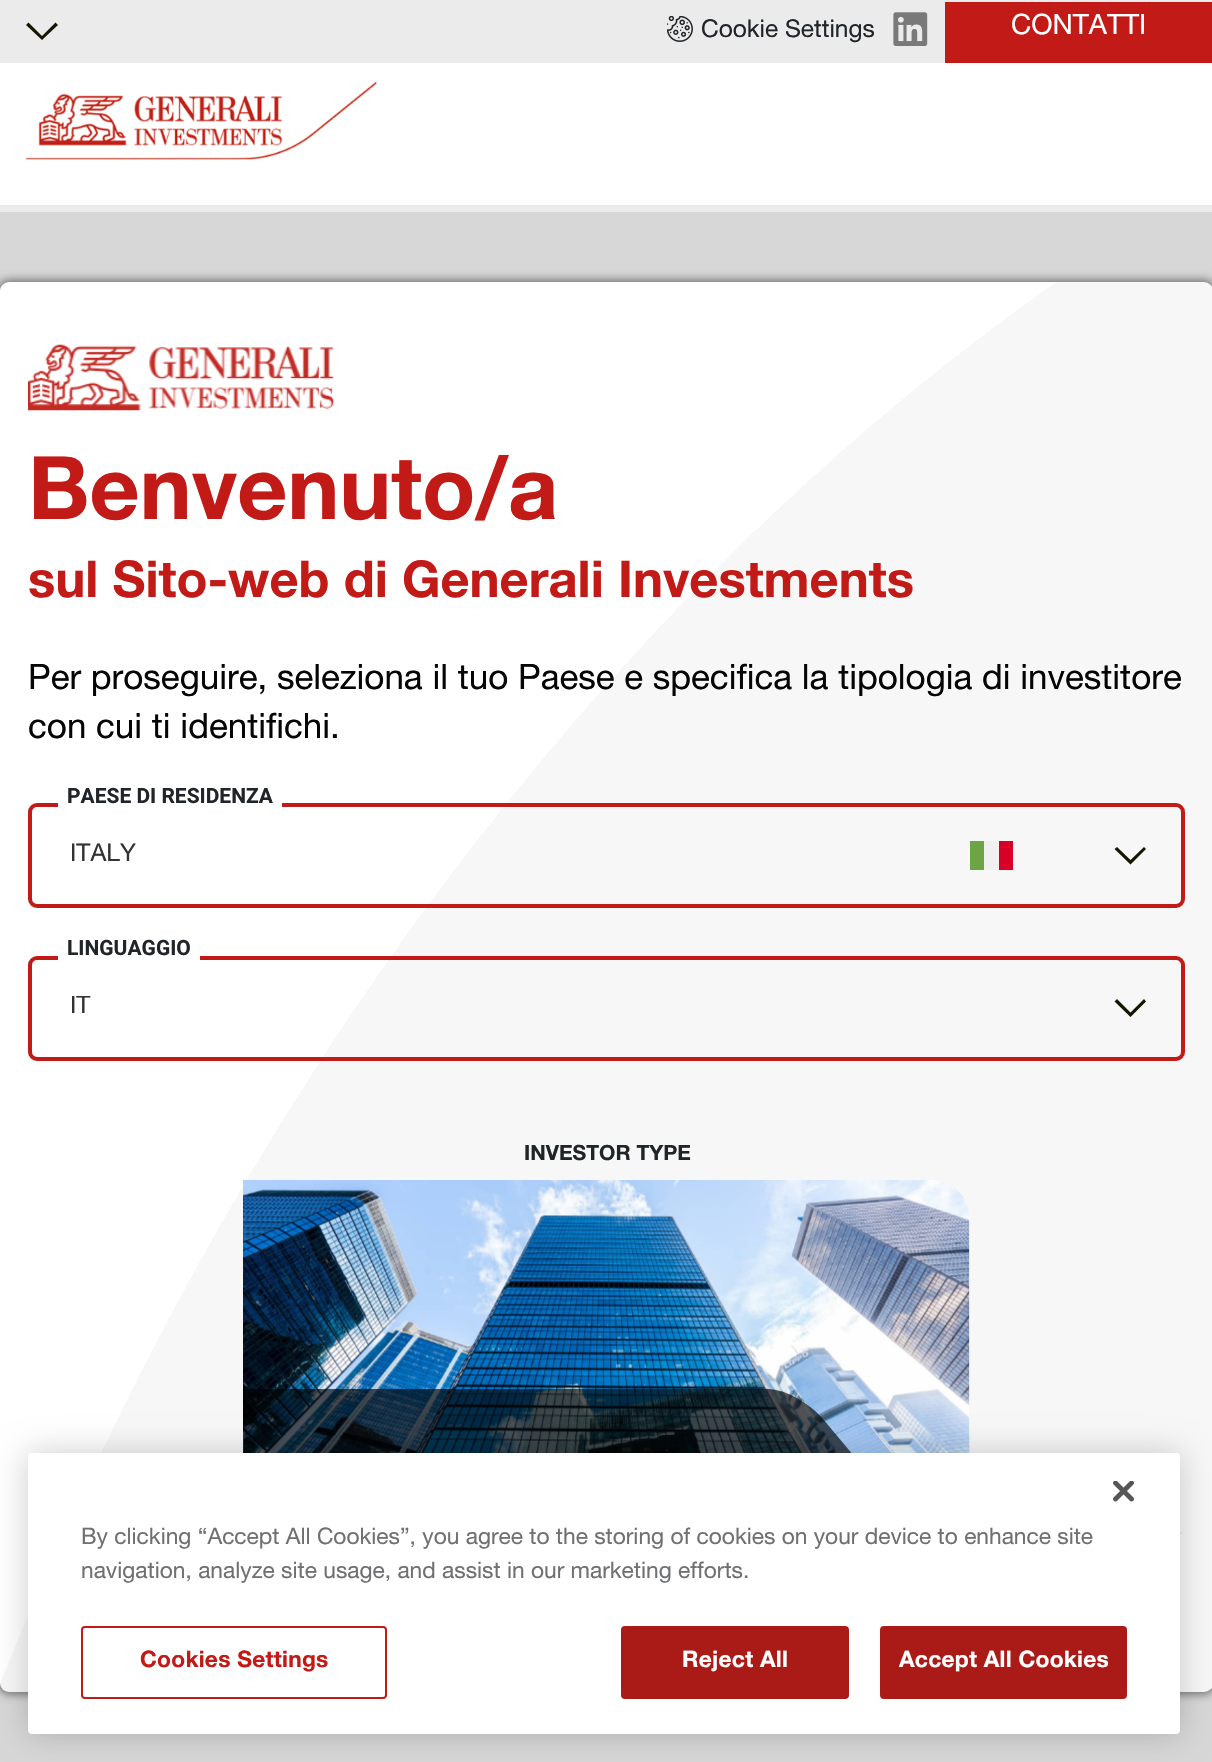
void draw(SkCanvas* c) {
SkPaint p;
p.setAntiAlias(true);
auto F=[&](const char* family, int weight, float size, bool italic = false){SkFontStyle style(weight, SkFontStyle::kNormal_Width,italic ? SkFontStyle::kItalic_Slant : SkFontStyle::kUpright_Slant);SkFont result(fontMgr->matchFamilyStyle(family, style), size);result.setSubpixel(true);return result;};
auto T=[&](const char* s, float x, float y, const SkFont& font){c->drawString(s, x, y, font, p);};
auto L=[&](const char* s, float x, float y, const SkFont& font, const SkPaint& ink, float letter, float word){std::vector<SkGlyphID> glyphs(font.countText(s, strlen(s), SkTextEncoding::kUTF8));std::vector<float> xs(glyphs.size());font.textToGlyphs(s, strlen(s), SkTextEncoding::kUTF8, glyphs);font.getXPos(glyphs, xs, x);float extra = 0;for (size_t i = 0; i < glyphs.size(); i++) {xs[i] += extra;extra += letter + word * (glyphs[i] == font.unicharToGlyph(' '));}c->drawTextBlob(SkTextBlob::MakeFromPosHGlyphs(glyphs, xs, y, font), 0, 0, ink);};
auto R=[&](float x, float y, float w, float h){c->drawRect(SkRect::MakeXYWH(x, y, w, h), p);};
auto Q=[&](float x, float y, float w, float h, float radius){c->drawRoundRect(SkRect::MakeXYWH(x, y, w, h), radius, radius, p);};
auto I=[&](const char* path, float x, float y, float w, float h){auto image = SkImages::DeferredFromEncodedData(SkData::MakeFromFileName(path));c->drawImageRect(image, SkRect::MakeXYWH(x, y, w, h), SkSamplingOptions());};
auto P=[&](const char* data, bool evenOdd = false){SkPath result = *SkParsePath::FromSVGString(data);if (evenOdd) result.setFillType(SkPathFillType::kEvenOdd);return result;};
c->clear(0xffffffff);
p.setColor(0xffebebeb);
R(0,0,1212,63);
I("1.png",667,16,26,26);
auto f1 = F("Helvetica Neue",400,24.5);
p.setColor(0xff212529);
T("Cookie Settings",701,37,f1);
I("2.png",893,12,35,34);
p.setColor(0xffc21b17);
R(945,2,267,61);
auto f2 = F("Helvetica Neue",400,28);
p.setColor(0xffffffff);
T("CONTATTI",1011,34,f2);
p.setColor(0xff161602);
c->drawPath(P("M26 25l2.5-2.5l13.5 13.5l13.5-13.5l2.5 2.5l-16 15z",true),p);
p.setColor(0xffd7d7d7);
R(0,212,1212,1550);
p.setColor(0x80000000);
p.setMaskFilter(SkMaskFilter::MakeBlur(kNormal_SkBlurStyle, 5));
c->drawRoundRect(SkRect::MakeXYWH(-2,280,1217,1414),11,11,p);
p.setMaskFilter(nullptr);
{
const SkColor colors[] = {0xfff7f7f7,0xffffffff};
const float stops[] = {.8,.8};
SkMatrix m = SkMatrix::Translate(2244,3258).preScale(3173,4209);
p.setShader(SkGradientShader::MakeRadial({0, 0}, 1, colors, stops, 2, SkTileMode::kClamp, 0, &m));
p.setAlpha(255);
}
Q(0,282,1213,1410,9);
I("3.png",28,344,307,67);
auto f3 = F("Helvetica Neue",700,87.5);
p.setShader(nullptr);
p.setColor(0xffc21b17);
T("Benvenuto/a",28,519,f3);
auto f4 = F("Helvetica Neue",700,50.75);
T("sul Sito-web di Generali Investments",28,597,f4);
auto f5 = F("Helvetica Neue",400,35);
p.setColor(0xff050505);
T("Per proseguire, seleziona il tuo Paese e specifica la tipologia di investitore",28,689,f5);
T("con cui ti identifichi.",28,738,f5);
p.setStroke(true);
p.setStrokeWidth(4);
p.setColor(0xffc21b17);
c->drawRoundRect(SkRect::MakeXYWH(30,805,1153,101),7,7,p);
p.setStroke(false);
p.setColor(0xffffffff);
R(58,803,224,4);
auto f6 = F("Roboto",700,21);
p.setColor(0xff212529);
T("PAESE DI RESIDENZA",67,803,f6);
p.setColor(0xff333333);
T("ITALY",70,861,f1);
p.setColor(0xfff0f0f0);
c->drawPath(P("M999 841h-29v29h43v-29z"),p);
p.setColor(0xff6da544);
R(970,841,14,29);
p.setColor(0xffd80027);
R(999,841,14,29);
p.setColor(0xff161602);
c->drawPath(P("M1114.5 849l2.5-2l13.5 13l13.5-13l2 2l-15.5 15.5z",true),p);
p.setStroke(true);
p.setColor(0xffc21b17);
c->drawRoundRect(SkRect::MakeXYWH(30,958,1153,101),7,7,p);
p.setStroke(false);
p.setColor(0xffffffff);
R(58,956,142,4);
p.setColor(0xff212529);
T("LINGUAGGIO",67,955,f6);
c->save();
c->clipRect(SkRect::MakeXYWH(70,996,943,24));
p.setColor(0xff333333);
T("IT",70,1013,f1);
c->restore();
p.setColor(0xff161602);
c->drawPath(P("M1114.5 1001.5l2.5-2.5l13.5 13.5l13.5-13.5l2 2.5l-15.5 15.5z",true),p);
auto f7 = F("Helvetica Neue",700,21);
p.setColor(0xff212529);
T("INVESTOR TYPE",524,1160,f7);
I("4.png",243,1180,727,273);
p.setColor(0xa6000000);
c->drawPath(P("M273 1529c-17-4-30-19-30-38v-102h525c17 0 41 14 55 30l92 110z"),p);
p.setColor(0xffebebeb);
c->drawPath(P("M902 1532h281l-87 86c-16 16-41 28-56 28h-281l87-86c15-16 40-28 56-28z"),p);
I("5.png",26,82,351,78);
R(0,205,1212,7);
p.setColor(0x33000000);
p.setMaskFilter(SkMaskFilter::MakeBlur(kNormal_SkBlurStyle, 16));
c->drawRoundRect(SkRect::MakeXYWH(28,1453,1152,281),4,4,p);
p.setMaskFilter(nullptr);
p.setColor(0xffffffff);
Q(28,1453,1152,281,4);
I("6.png",1113,1481,21,21);
auto f8 = F("Helvetica Neue",400,22.75);
p.setColor(0xff6f7072);
T("By clicking “Accept All Cookies”, you agree to the storing of cookies on your device to enhance site",81,1544,f8);
T("navigation, analyze site usage, and assist in our marketing efforts.",81,1578,f8);
p.setStroke(true);
p.setStrokeWidth(2);
p.setColor(0xffc21b17);
c->drawRoundRect(SkRect::MakeXYWH(82,1627,304,71),3,3,p);
auto f9 = F("Helvetica Neue",700,22.75);
p.setStroke(false);
L("Cookies Settings",140,1667,f9,p,.25,0);
p.setColor(0xffaa1b17);
c->drawRoundRect(SkRect::MakeXYWH(622,1627,226,71),3,3,p);
p.setStroke(true);
c->drawRoundRect(SkRect::MakeXYWH(622,1627,226,71),3,3,p);
p.setStroke(false);
p.setColor(0xffffffff);
L("Reject All",682,1667,f9,p,.25,0);
p.setColor(0xffaa1b17);
c->drawRoundRect(SkRect::MakeXYWH(881,1627,245,71),3,3,p);
p.setStroke(true);
c->drawRoundRect(SkRect::MakeXYWH(881,1627,245,71),3,3,p);
p.setStroke(false);
p.setColor(0xffffffff);
L("Accept All Cookies",899,1667,f9,p,.25,0);
}
